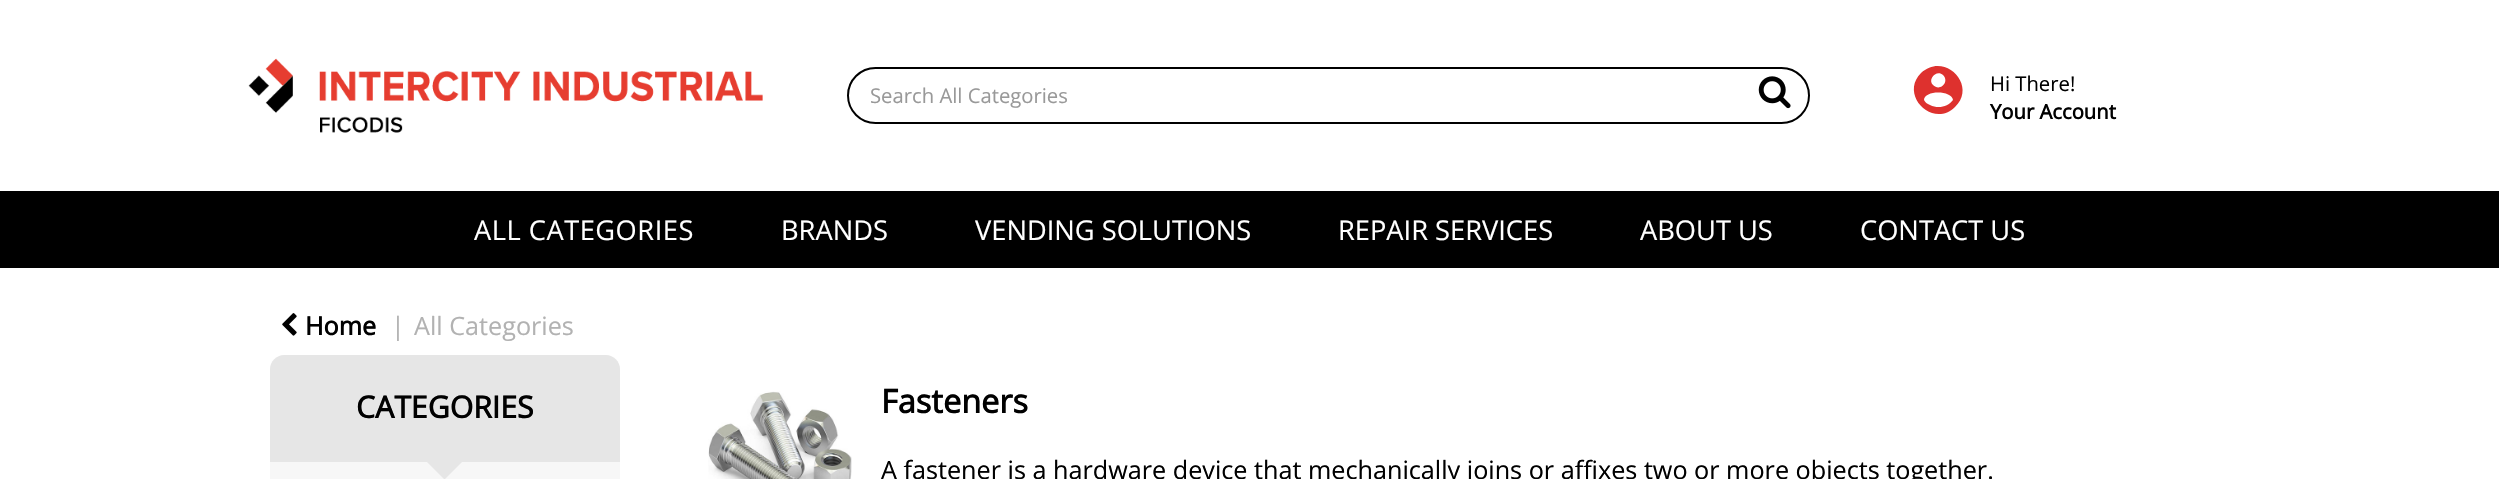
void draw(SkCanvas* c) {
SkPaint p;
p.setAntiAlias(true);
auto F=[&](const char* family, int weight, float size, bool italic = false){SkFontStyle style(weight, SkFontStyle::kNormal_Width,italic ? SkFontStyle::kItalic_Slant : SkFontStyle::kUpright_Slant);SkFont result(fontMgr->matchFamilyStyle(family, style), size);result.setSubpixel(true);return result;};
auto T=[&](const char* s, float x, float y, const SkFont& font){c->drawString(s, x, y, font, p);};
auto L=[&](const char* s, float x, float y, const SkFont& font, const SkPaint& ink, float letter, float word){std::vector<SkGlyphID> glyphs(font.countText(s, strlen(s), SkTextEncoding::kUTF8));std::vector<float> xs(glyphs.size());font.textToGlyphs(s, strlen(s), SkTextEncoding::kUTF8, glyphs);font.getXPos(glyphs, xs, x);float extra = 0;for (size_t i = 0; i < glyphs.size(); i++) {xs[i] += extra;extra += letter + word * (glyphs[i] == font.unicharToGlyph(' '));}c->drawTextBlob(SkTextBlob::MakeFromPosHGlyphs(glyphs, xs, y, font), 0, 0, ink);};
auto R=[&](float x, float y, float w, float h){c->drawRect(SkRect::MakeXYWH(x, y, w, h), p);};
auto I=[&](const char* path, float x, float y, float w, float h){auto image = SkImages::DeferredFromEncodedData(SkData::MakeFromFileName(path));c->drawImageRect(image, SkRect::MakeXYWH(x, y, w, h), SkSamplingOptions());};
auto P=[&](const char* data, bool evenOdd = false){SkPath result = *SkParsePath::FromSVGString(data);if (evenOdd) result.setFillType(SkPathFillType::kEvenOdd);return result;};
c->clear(0xffffffff);
I("1.png",248,58,515,75);
p.setStroke(true);
p.setStrokeWidth(2);
p.setColor(0xff000000);
c->drawRoundRect(SkRect::MakeXYWH(848,68,961,55),27.5,27.5,p);
auto f1 = F("Open Sans",400,20.25);
p.setStroke(false);
p.setColor(0xff999999);
T("Search All Categories",870,103,f1);
I("2.png",1758,76,33,33);
p.setColor(0xffde312e);
c->drawPath(P("M1930 105c8 4 18 2 23-5c-1-10-29-10-29 0c1 2 3 4 6 5zm13-30c-6-6-16 4-10 10c7 7 17-3 10-10zm-22-2c23-22 57 12 34 34c-22 22-56-12-34-34z"),p);
p.setColor(0xff000000);
T("Hi There!",1990,91,f1);
auto f2 = F("Open Sans",700,20.25);
T("Your Account",1990,119,f2);
R(0,191,2499,77);
auto f3 = F("Open Sans",400,27.25);
p.setColor(0xffffffff);
L("ALL CATEGORIES",474,240,f3,p,.5,0);
T("BRANDS",781,240,f3);
T("VENDING SOLUTIONS",975,240,f3);
T("REPAIR SERVICES",1338,240,f3);
T("ABOUT US",1640,240,f3);
T("CONTACT US",1860,240,f3);
I("3.png",282,313,15,23);
auto f4 = F("Open Sans",700,25.2);
p.setColor(0xff000000);
T("Home",305,335,f4);
auto f5 = F("Open Sans",400,25.2);
p.setColor(0xffb2b2b2);
T("|",391,335,f5);
T("All Categories",414,335,f5);
p.setColor(0xfff7f7f7);
R(270,462,350,17);
p.setColor(0xffe6e6e6);
c->drawPath(P("M284 355h322c7.5 0 14 6.5 14 14v93h-350v-93c0-7.5 6.5-14 14-14z"),p);
auto f6 = F("Open Sans",700,30.25);
p.setColor(0xff000000);
T("CATEGORIES",356,418,f6);
p.setColor(0xffe6e6e6);
c->drawPath(P("M427 462h35l-17.5 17.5z"),p);
I("4.png",708,391,144,88);
auto f7 = F("Open Sans",700,32.5);
p.setColor(0xff000000);
T("Fasteners",881,413,f7);
T("A fastener is a hardware device that mechanically joins or affixes two or more objects together.",881,479,f5);
}
